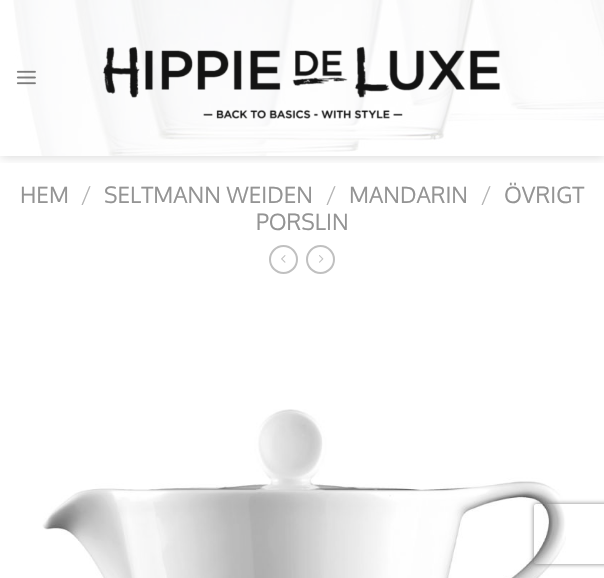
void draw(SkCanvas* c) {
SkPaint p;
p.setAntiAlias(true);
auto F=[&](const char* family, int weight, float size, bool italic = false){SkFontStyle style(weight, SkFontStyle::kNormal_Width,italic ? SkFontStyle::kItalic_Slant : SkFontStyle::kUpright_Slant);SkFont result(fontMgr->matchFamilyStyle(family, style), size);result.setSubpixel(true);return result;};
auto T=[&](const char* s, float x, float y, const SkFont& font){c->drawString(s, x, y, font, p);};
auto I=[&](const char* path, float x, float y, float w, float h){auto image = SkImages::DeferredFromEncodedData(SkData::MakeFromFileName(path));c->drawImageRect(image, SkRect::MakeXYWH(x, y, w, h), SkSamplingOptions());};
auto P=[&](const char* data, bool evenOdd = false){SkPath result = *SkParsePath::FromSVGString(data);if (evenOdd) result.setFillType(SkPathFillType::kEvenOdd);return result;};
c->clear(0xffffffff);
c->save();
c->clipRect(SkRect::MakeXYWH(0,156,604,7));
p.setColor(0x26000000);
p.setMaskFilter(SkMaskFilter::MakeBlur(kNormal_SkBlurStyle, 5));
c->drawRect(SkRect::MakeXYWH(1,1,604,156),p);
p.setMaskFilter(nullptr);
c->restore();
I("1.png",13,0,591,156);
I("2.png",16,70,20,15);
I("3.png",102,46,399,73);
auto f1 = F("Oxygen",400,22.5);
p.setColor(0xff949494);
T("HEM",20,203,f1);
auto f2 = F("Oxygen",300,22.5);
p.setColor(0xffb2b2b2);
T("/",81,203,f2);
p.setColor(0xff949494);
T("SELTMANN WEIDEN",104,203,f1);
p.setColor(0xffb2b2b2);
T("/",326,203,f2);
p.setColor(0xff949494);
T("MANDARIN",349,203,f1);
p.setColor(0xffb2b2b2);
T("/",481,203,f2);
p.setColor(0xff949494);
T("ÖVRIGT",504,203,f1);
T("PORSLIN",256,230,f1);
p.setStroke(true);
p.setStrokeWidth(2);
p.setColor(0xffc0c0c0);
c->drawCircle(283.5,259.5,13.5,p);
I("4.png",281,255,5,8);
c->drawCircle(320.5,259.5,13.5,p);
I("5.png",319,255,5,8);
I("6.png",42,409,524,169);
c->save();
c->clipPath(P("M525 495h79v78h-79zm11 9h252c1 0 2 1 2 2v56c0 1-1 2-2 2h-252c-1 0-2-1-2-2v-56c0-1 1-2 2-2z",true),true);
p.setStroke(false);
p.setColor(0xff808080);
p.setMaskFilter(SkMaskFilter::MakeBlur(kNormal_SkBlurStyle, 2.5));
c->drawRoundRect(SkRect::MakeXYWH(534,504,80,60),2,2,p);
p.setMaskFilter(nullptr);
c->restore();
}
